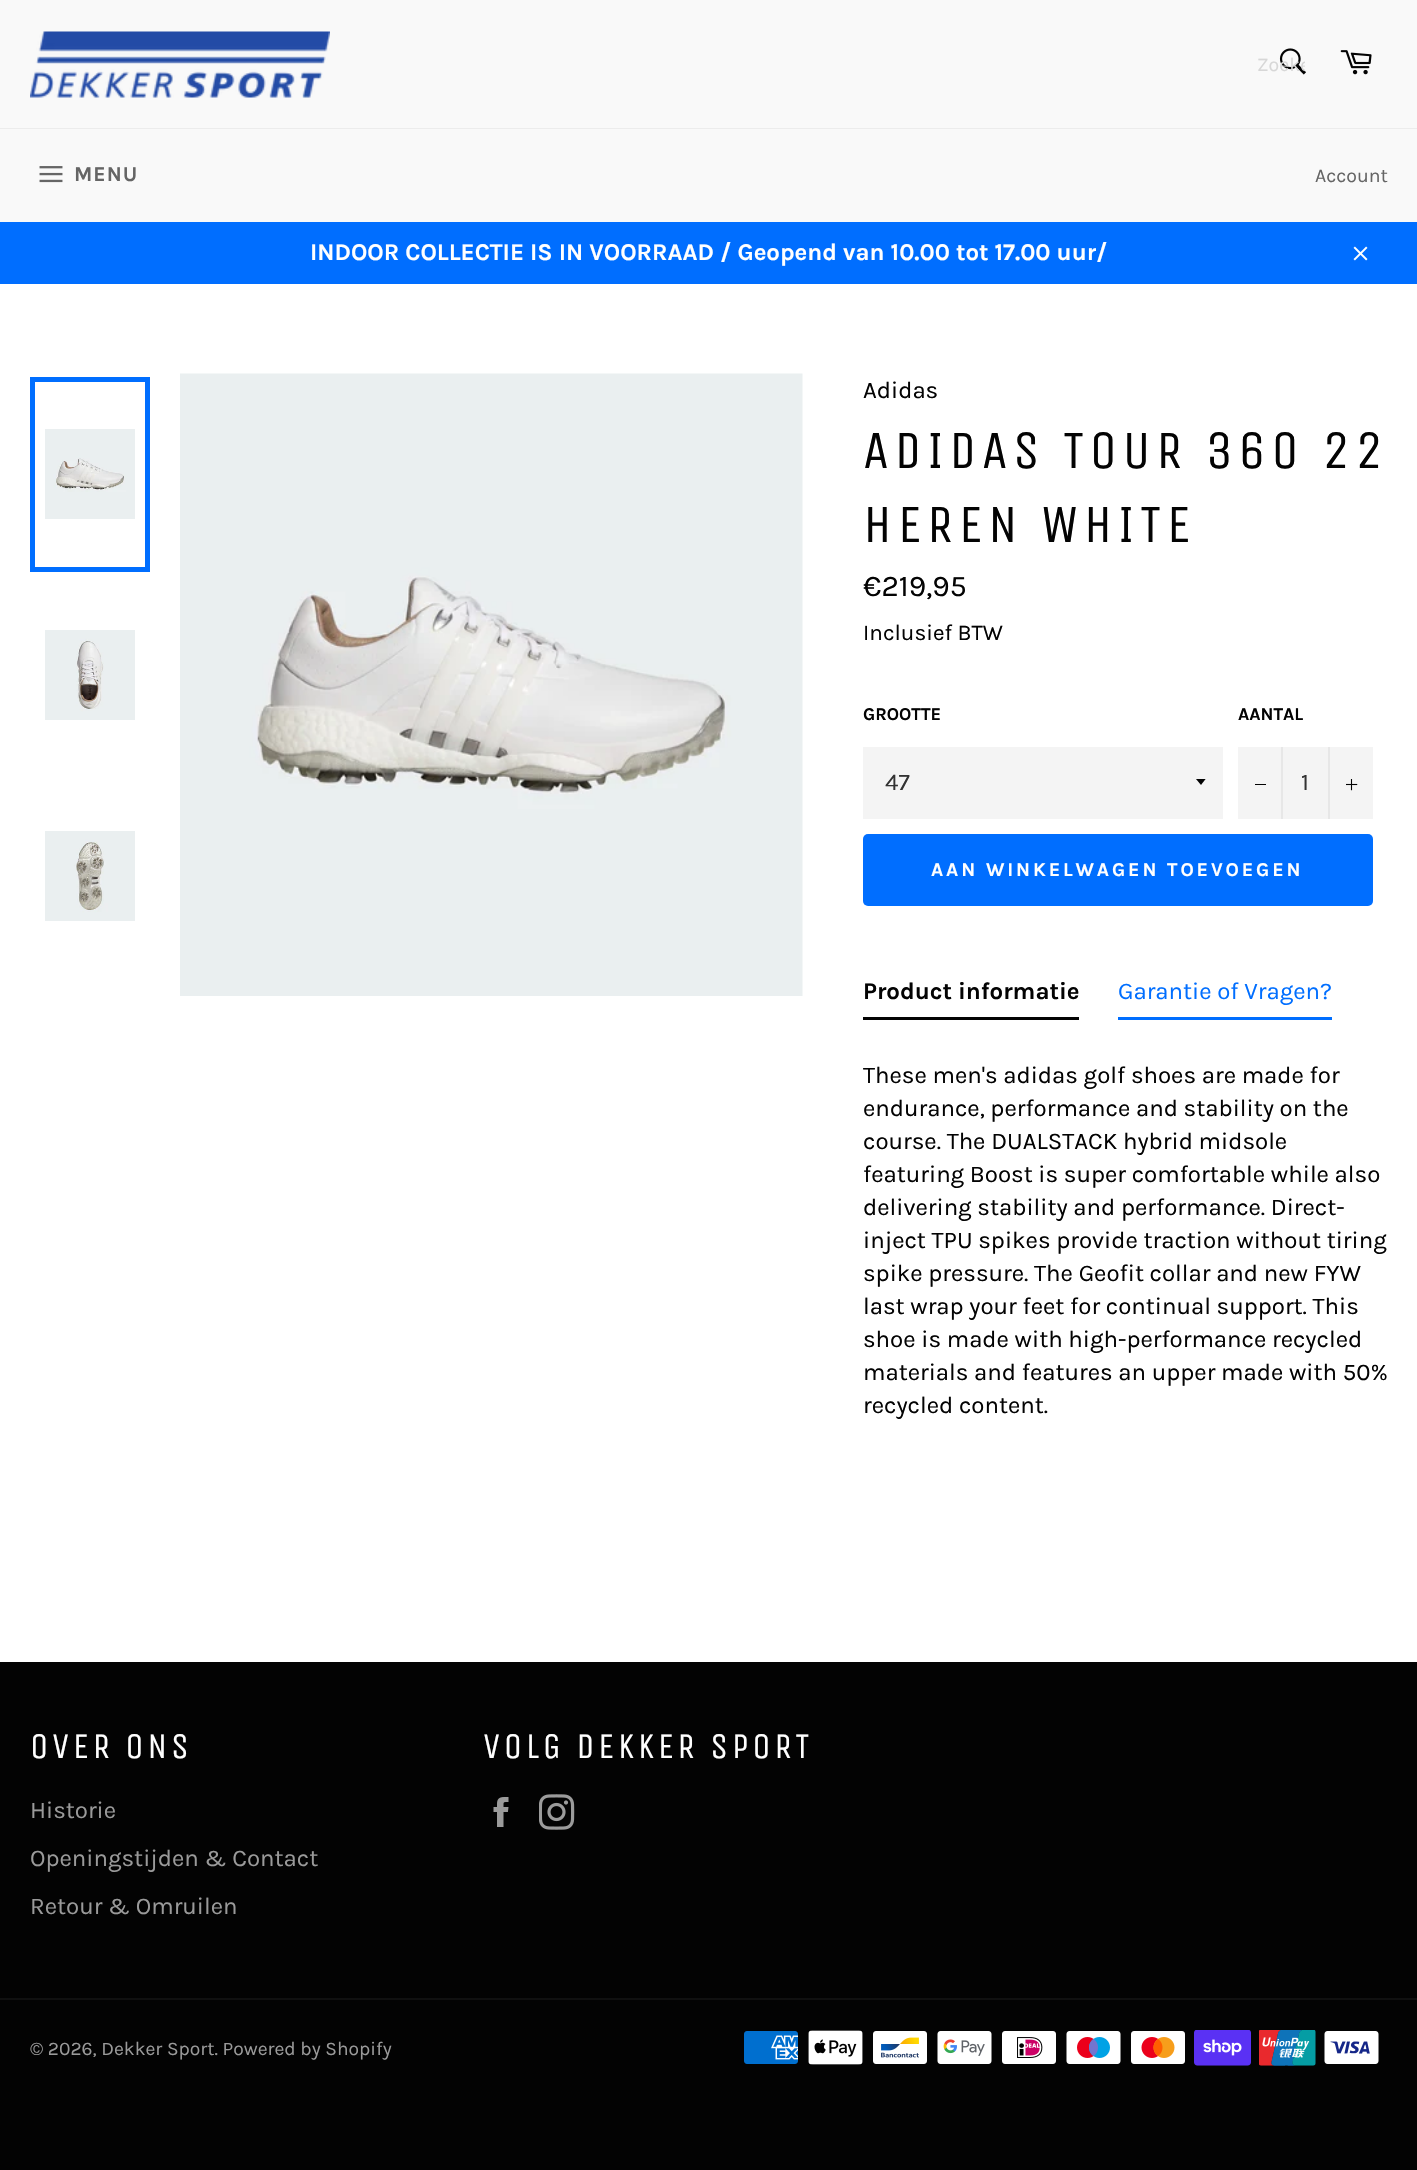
void draw(SkCanvas* c) {
SkPaint p;
p.setAntiAlias(true);
auto F=[&](const char* family, int weight, float size, bool italic = false){SkFontStyle style(weight, SkFontStyle::kNormal_Width,italic ? SkFontStyle::kItalic_Slant : SkFontStyle::kUpright_Slant);SkFont result(fontMgr->matchFamilyStyle(family, style), size);result.setSubpixel(true);return result;};
auto T=[&](const char* s, float x, float y, const SkFont& font){c->drawString(s, x, y, font, p);};
auto L=[&](const char* s, float x, float y, const SkFont& font, const SkPaint& ink, float letter, float word){std::vector<SkGlyphID> glyphs(font.countText(s, strlen(s), SkTextEncoding::kUTF8));std::vector<float> xs(glyphs.size());font.textToGlyphs(s, strlen(s), SkTextEncoding::kUTF8, glyphs);font.getXPos(glyphs, xs, x);float extra = 0;for (size_t i = 0; i < glyphs.size(); i++) {xs[i] += extra;extra += letter + word * (glyphs[i] == font.unicharToGlyph(' '));}c->drawTextBlob(SkTextBlob::MakeFromPosHGlyphs(glyphs, xs, y, font), 0, 0, ink);};
auto R=[&](float x, float y, float w, float h){c->drawRect(SkRect::MakeXYWH(x, y, w, h), p);};
auto Q=[&](float x, float y, float w, float h, float radius){c->drawRoundRect(SkRect::MakeXYWH(x, y, w, h), radius, radius, p);};
auto I=[&](const char* path, float x, float y, float w, float h){auto image = SkImages::DeferredFromEncodedData(SkData::MakeFromFileName(path));c->drawImageRect(image, SkRect::MakeXYWH(x, y, w, h), SkSamplingOptions());};
auto P=[&](const char* data, bool evenOdd = false){SkPath result = *SkParsePath::FromSVGString(data);if (evenOdd) result.setFillType(SkPathFillType::kEvenOdd);return result;};
c->clear(0xff030303);
p.setColor(0xffffffff);
R(0,284,1417,1378);
p.setColor(0xfff9f9f9);
R(0,0,1417,128);
I("1.png",30,31,300,67);
I("2.png",1279,48,27,27);
c->save();
c->clipRect(SkRect::MakeXYWH(1257,53,48,22));
auto f1 = F("Karla",400,19.5);
p.setColor(0xffd7d7d7);
T("Zoeke",1257,71,f1);
c->restore();
I("3.png",1340,50,32,25);
p.setColor(0xffececec);
R(0,128,1417,1);
p.setColor(0xfff9f9f9);
R(0,129,1417,93);
I("4.png",39,166,24,17);
auto f2 = F("Karla",700,21);
p.setColor(0xff656565);
L("MENU",74,181,f2,p,1,0);
T("Account",1315,182,f1);
p.setColor(0xff006eff);
R(0,222,1417,62);
auto f3 = F("Karla",700,24);
p.setColor(0xffffffff);
T("INDOOR COLLECTIE IS IN VOORRAAD / Geopend van 10.00 tot 17.00 uur/",310,260,f3);
I("5.png",1353,246,15,15);
I("6.png",45,429,90,90);
p.setStroke(true);
p.setStrokeWidth(5);
p.setColor(0xff006eff);
c->drawRect(SkRect::MakeXYWH(32.5,379.5,115,190),p);
I("7.png",45,630,90,90);
I("8.png",45,831,90,90);
I("9.png",180,373,623,623);
auto f4 = F("Karla",400,24);
p.setStroke(false);
p.setColor(0xff030303);
T("Adidas",863,398,f4);
auto f5 = F("Unica One",400,54);
L("ADIDAS TOUR 360 22",863,468,f5,p,5.4,0);
L("HEREN WHITE",863,542,f5,p,5.4,0);
auto f6 = F("Karla",400,30);
T("€219,95",863,596,f6);
auto f7 = F("Karla",400,22.5);
T("Inclusief BTW",863,640,f7);
auto f8 = F("Karla",700,18);
T("GROOTTE",863,720,f8);
p.setColor(0xfff4f4f4);
R(863,747,360,72);
c->save();
c->clipRect(SkRect::MakeXYWH(1196,779,12,7));
p.setColor(0xff030303);
c->drawPath(P("M1195.5 778.5l5.5 6.5l5-6.5z"),p);
c->restore();
p.setColor(0xff333333);
T("47",885,790,f4);
p.setColor(0xff030303);
T("AANTAL",1238,720,f8);
p.setColor(0xfff4f4f4);
R(1238,747,135,72);
p.setColor(0xffe7e7e7);
R(1281,747,2,72);
p.setColor(0xff030303);
R(1255,784,11,1);
p.setColor(0xff333333);
T("1",1301,790,f4);
p.setColor(0xffe7e7e7);
R(1328,747,2,72);
I("10.png",1346,779,12,12);
p.setColor(0xff006eff);
Q(863,834,510,72,5);
auto f9 = F("Karla",700,19.5);
p.setColor(0xffffffff);
L("AAN WINKELWAGEN TOEVOEGEN",931,876,f9,p,2.9,0);
p.setColor(0xff030303);
R(863,1017,216,3);
T("Product informatie",863,999,f3);
p.setColor(0xff006eff);
R(1118,1017,214,3);
T("Garantie of Vragen?",1118,999,f4);
p.setColor(0xff030303);
T("These men's adidas golf shoes are made for",863,1083,f4);
T("endurance, performance and stability on the",863,1116,f4);
T("course. The DUALSTACK hybrid midsole",863,1149,f4);
T("featuring Boost is super comfortable while also",863,1182,f4);
T("delivering stability and performance. Direct-",863,1215,f4);
T("inject TPU spikes provide traction without tiring",863,1248,f4);
T("spike pressure. The Geofit collar and new FYW",863,1281,f4);
T("last wrap your feet for continual support. This",863,1314,f4);
T("shoe is made with high-performance recycled",863,1347,f4);
T("materials and features an upper made with 50%",863,1380,f4);
T("recycled content.",863,1413,f4);
auto f10 = F("Unica One",400,36);
p.setColor(0xffffffff);
L("OVER ONS",30,1758,f10,p,3.6,0);
p.setColor(0xff9a9a9a);
T("Historie",30,1818,f4);
T("Openingstijden & Contact",30,1866,f4);
T("Retour & Omruilen",30,1914,f4);
p.setColor(0xffffffff);
L("VOLG DEKKER SPORT",483,1758,f10,p,3.6,0);
I("11.png",493,1797,16,30);
I("12.png",539,1794,36,36);
p.setColor(0xff101010);
R(0,1998,1417,2);
auto f11 = F("Karla",400,19.25);
p.setColor(0xff9a9a9a);
T("© 2026, Dekker Sport. Powered by Shopify",30,2055,f11);
I("13.png",744,2031,54,33);
I("14.png",808,2030,55,35);
I("15.png",873,2031,54,33);
I("16.png",937,2031,55,33);
I("17.png",1002,2031,54,33);
I("18.png",1066,2031,55,33);
I("19.png",1131,2031,54,33);
I("20.png",1194,2030,57,36);
I("21.png",1259,2030,57,36);
I("22.png",1324,2031,55,33);
}
